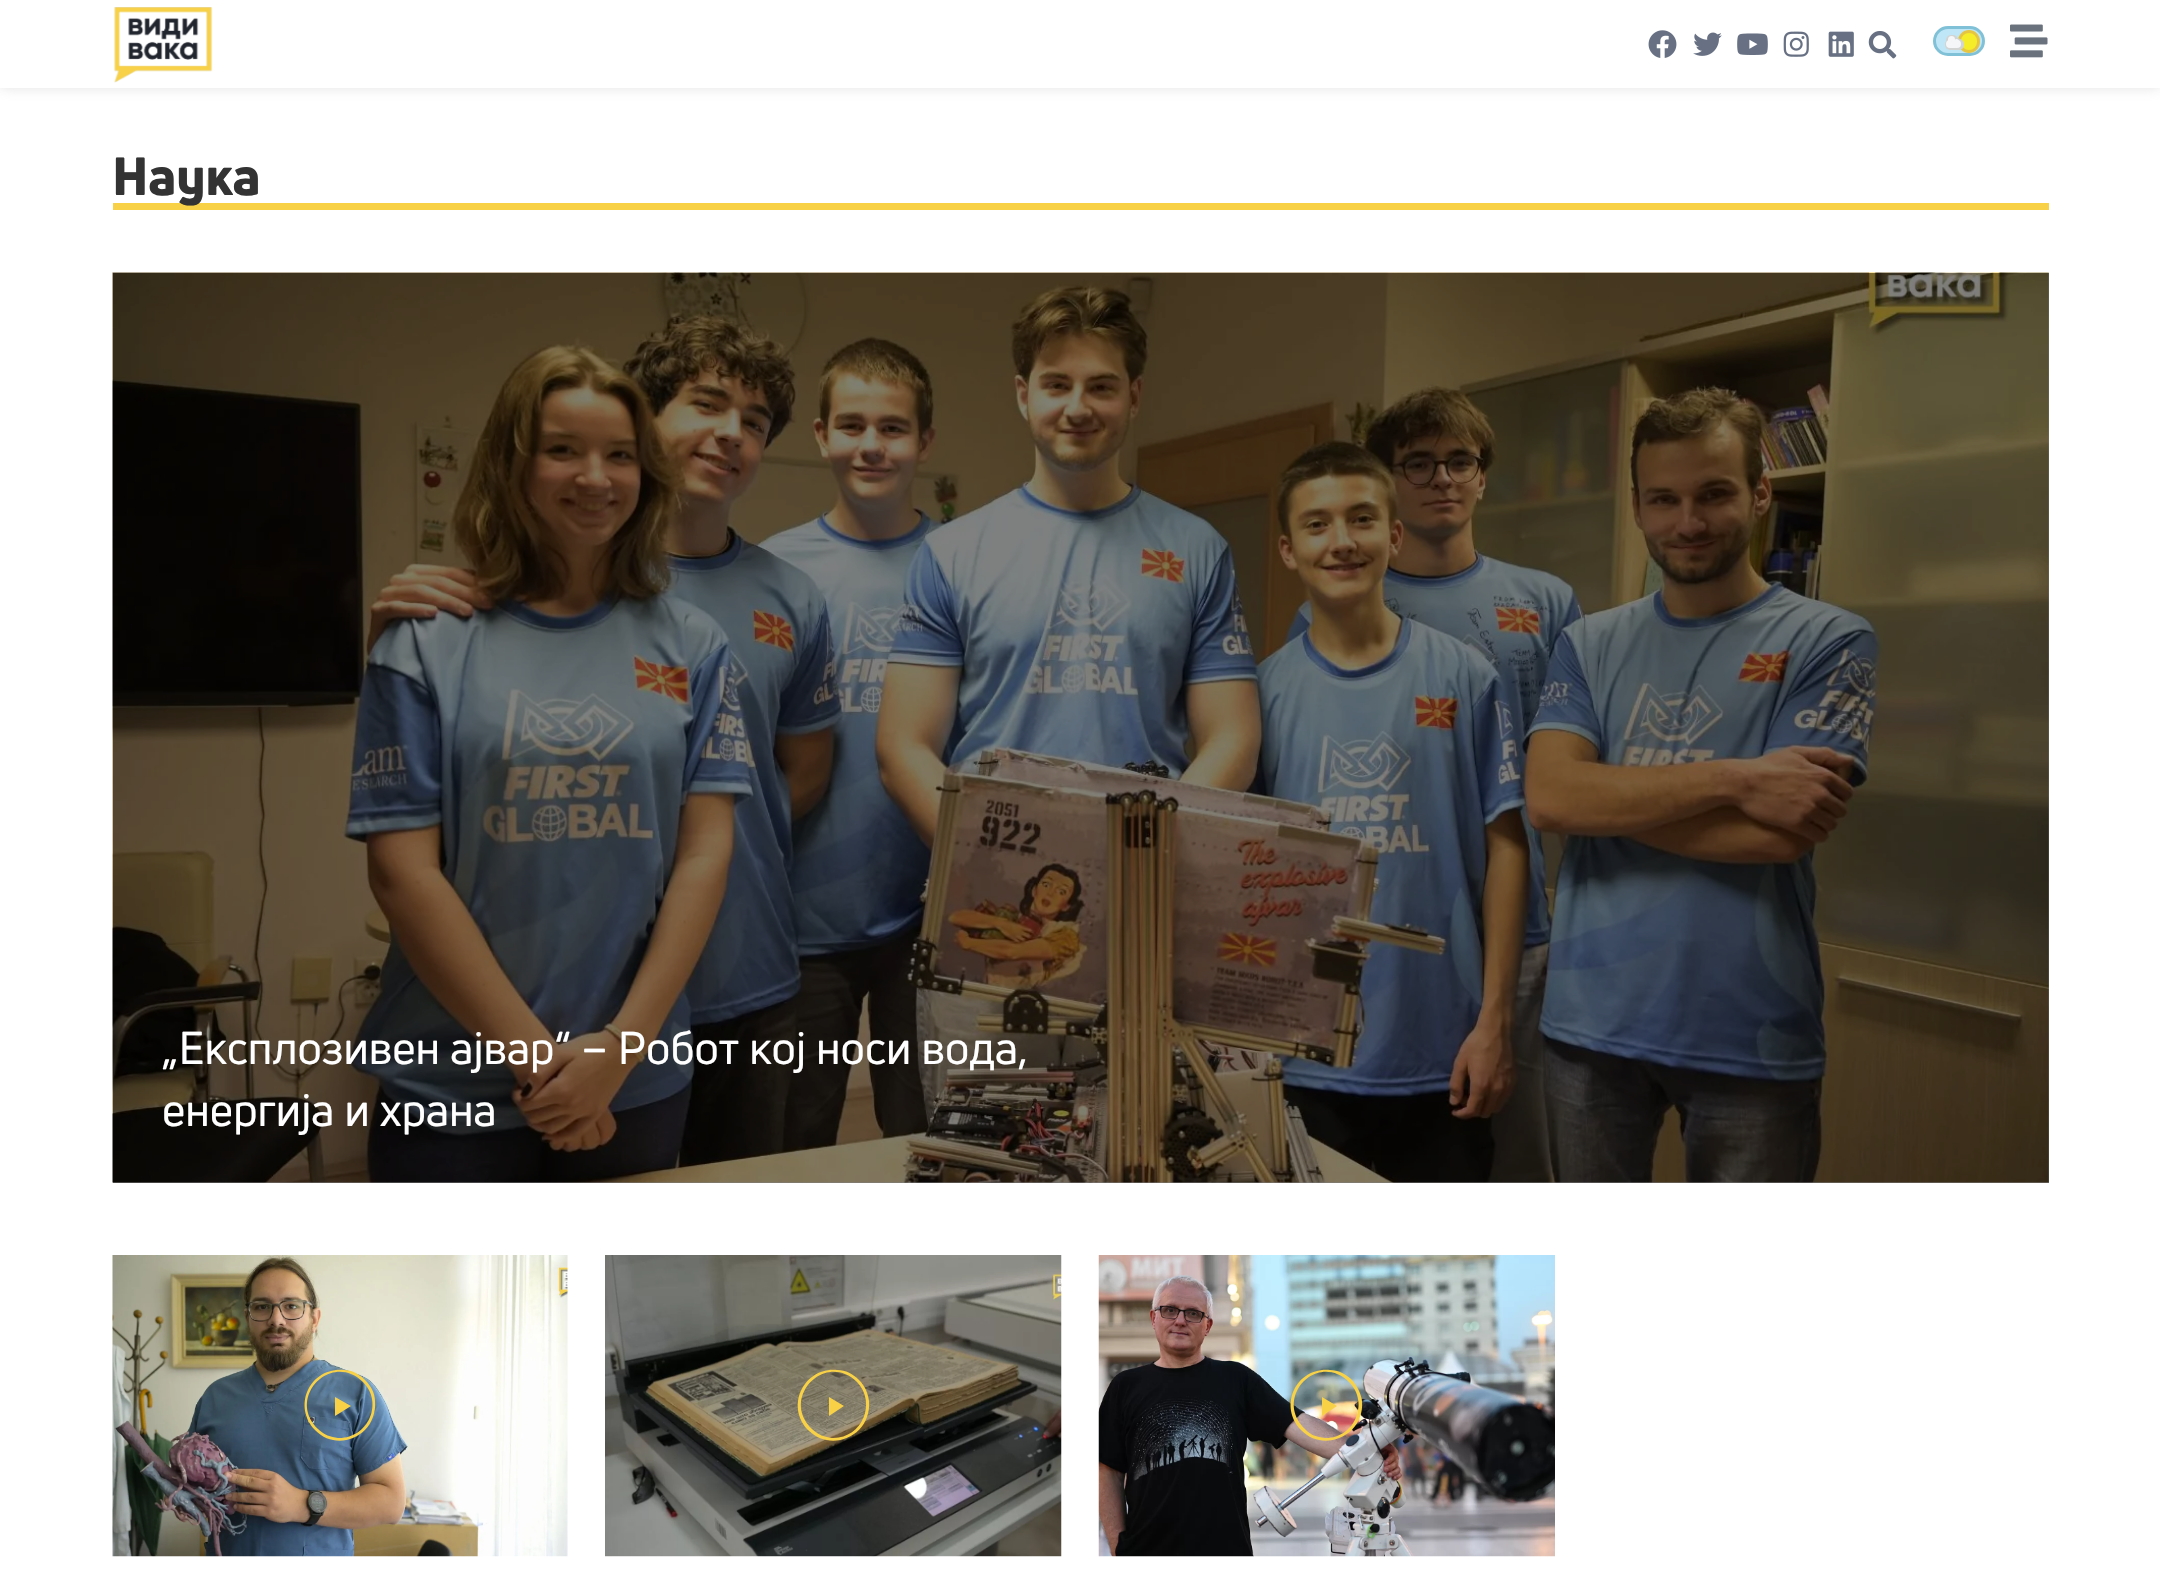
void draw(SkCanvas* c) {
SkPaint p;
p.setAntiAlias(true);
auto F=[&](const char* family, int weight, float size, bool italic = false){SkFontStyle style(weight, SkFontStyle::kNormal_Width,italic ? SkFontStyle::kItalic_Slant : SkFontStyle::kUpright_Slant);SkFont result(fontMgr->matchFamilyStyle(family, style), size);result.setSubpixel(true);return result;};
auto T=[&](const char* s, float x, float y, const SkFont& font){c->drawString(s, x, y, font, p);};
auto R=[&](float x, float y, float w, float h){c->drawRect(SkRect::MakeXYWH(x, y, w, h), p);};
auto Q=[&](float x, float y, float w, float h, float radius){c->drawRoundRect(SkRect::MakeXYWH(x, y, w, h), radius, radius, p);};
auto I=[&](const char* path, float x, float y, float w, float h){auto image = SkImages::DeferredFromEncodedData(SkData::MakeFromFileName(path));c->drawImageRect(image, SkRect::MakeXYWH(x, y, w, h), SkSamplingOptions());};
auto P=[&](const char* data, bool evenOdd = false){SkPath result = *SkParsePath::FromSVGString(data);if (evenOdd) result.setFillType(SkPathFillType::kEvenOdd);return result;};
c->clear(0xffffffff);
p.setColor(0xff808080);
R(113,273,1936,910);
p.setColor(0x80c6c6c6);
p.setMaskFilter(SkMaskFilter::MakeBlur(kNormal_SkBlurStyle, 6));
c->drawRect(SkRect::MakeXYWH(0,0,2160,88),p);
p.setMaskFilter(nullptr);
p.setColor(0xffffffff);
R(0,0,2160,88);
I("1.png",114,7,99,76);
I("2.png",1648,30,29,28);
I("3.png",1693,32,29,24);
I("4.png",1737,33,31,22);
I("5.png",1783,31,26,26);
I("6.png",1828,31,26,26);
I("7.png",1868,31,29,28);
p.setColor(0xffbfe6f7);
c->drawRoundRect(SkRect::MakeXYWH(1934.5,27.5,49,27),13.5,13.5,p);
p.setStroke(true);
p.setStrokeWidth(3);
p.setColor(0xff80c1d7);
c->drawRoundRect(SkRect::MakeXYWH(1934.5,27.5,49,27),13.5,13.5,p);
p.setStroke(false);
p.setColor(0xfff5ed28);
c->drawRoundRect(SkRect::MakeXYWH(1959.5,31.5,19,20),9.5,9.5,p);
p.setStroke(true);
p.setColor(0xffe6c542);
c->drawRoundRect(SkRect::MakeXYWH(1959.5,31.5,19,20),9.5,9.5,p);
p.setStroke(false);
p.setColor(0xffd2d4d3);
Q(1945,39,19,11,5);
Q(1946,35,12,11,5);
c->drawCircle(1957,42,4,p);
p.setColor(0xfff5f6f8);
Q(1946,40,15,8,4);
Q(1948,36,7,8,3.5);
c->drawCircle(1956.5,41.5,2.5,p);
I("8.png",2010,24,38,34);
p.setColor(0xfff8d147);
R(113,203,1936,7);
auto f1 = F("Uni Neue",900,52.5);
p.setColor(0xff333333);
T("Наука",112,195,f1);
I("9.png",112,272,1937,911);
auto f2 = F("Uni Neue",400,45);
p.setColor(0xffffffff);
T("„Експлозивен ајвар“ – Робот кој носи вода,",162,1064,f2);
T("енергија и храна",162,1126,f2);
I("10.png",112,1255,456,302);
p.setColor(0xfff8d147);
c->drawPath(P("M365 1380c-6-6-13-10-21-10c-34-3-52 36-29 60c23 24 63 5 60-29c0-8-4-15-10-21zm-2 2c21 21 5 57-25 56c-7-1-14-3-20-9c-32-31 13-78 45-47zm-28 15v19l16-10z"),p);
I("11.png",605,1255,457,302);
c->drawPath(P("M859 1380c-6-6-13-10-22-10c-33-3-52 36-29 60c24 24 64 5 61-29c-1-8-4-15-10-21zm-2 2c20 21 5 57-25 56c-7-1-14-3-20-9c-32-31 13-78 45-47zm-28 15v19l15-10z"),p);
I("12.png",1098,1255,457,302);
c->drawPath(P("M1352 1380c-6-6-14-10-22-10c-34-3-52 36-29 60c23 24 64 5 61-29c-1-8-5-15-10-21zm-3 2c21 21 5 57-24 56c-8-1-15-3-20-9c-32-31 12-78 44-47zm-27 15v19l15-10z"),p);
}
